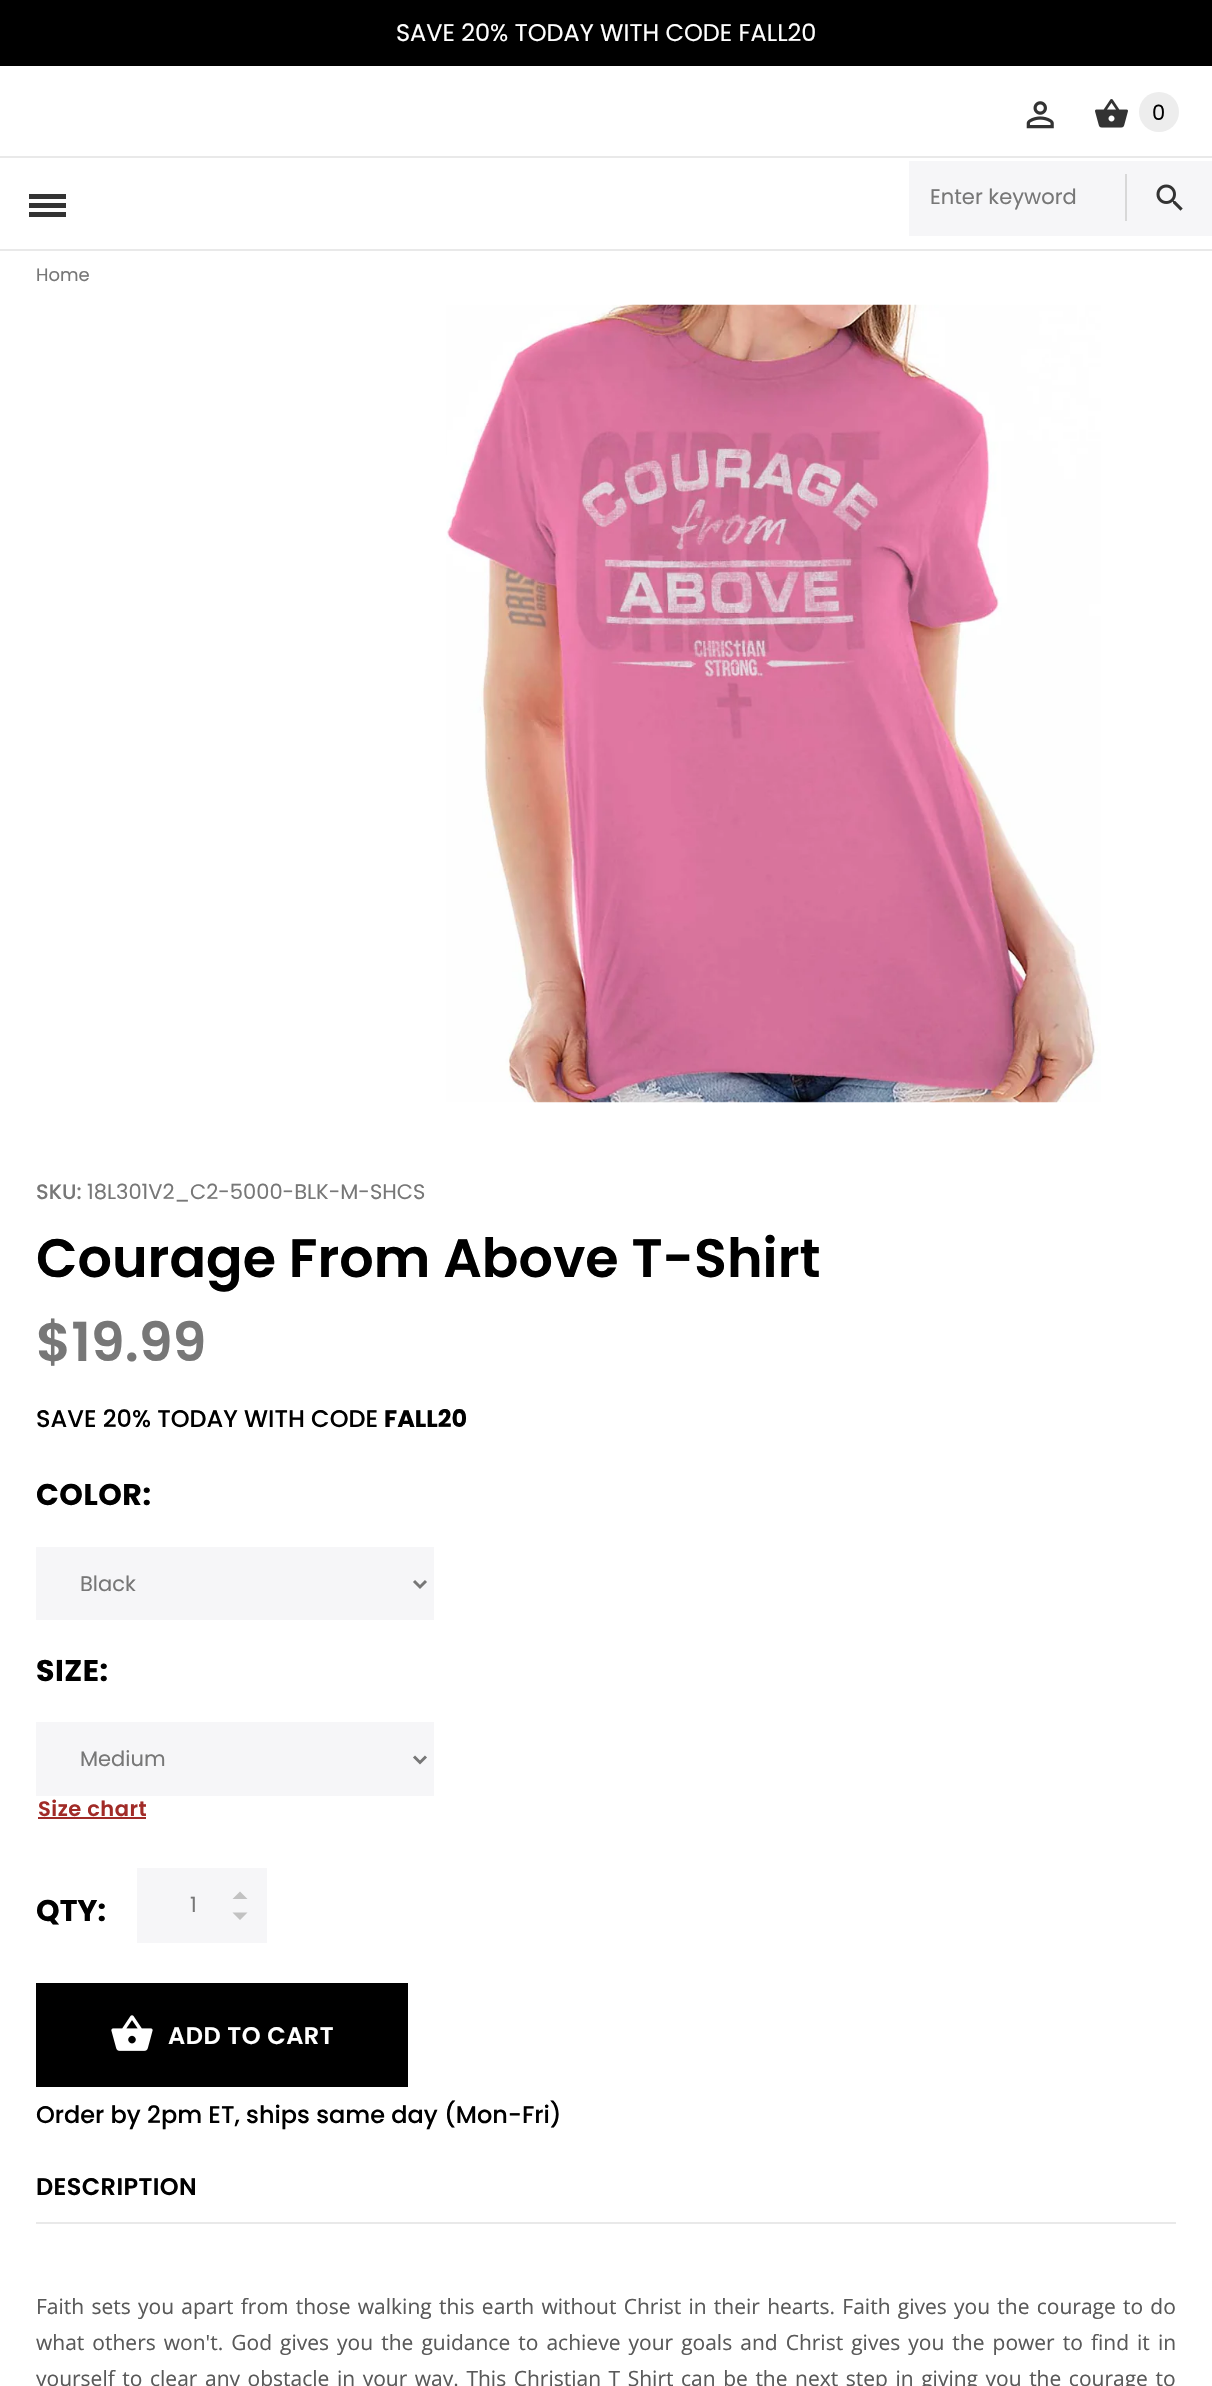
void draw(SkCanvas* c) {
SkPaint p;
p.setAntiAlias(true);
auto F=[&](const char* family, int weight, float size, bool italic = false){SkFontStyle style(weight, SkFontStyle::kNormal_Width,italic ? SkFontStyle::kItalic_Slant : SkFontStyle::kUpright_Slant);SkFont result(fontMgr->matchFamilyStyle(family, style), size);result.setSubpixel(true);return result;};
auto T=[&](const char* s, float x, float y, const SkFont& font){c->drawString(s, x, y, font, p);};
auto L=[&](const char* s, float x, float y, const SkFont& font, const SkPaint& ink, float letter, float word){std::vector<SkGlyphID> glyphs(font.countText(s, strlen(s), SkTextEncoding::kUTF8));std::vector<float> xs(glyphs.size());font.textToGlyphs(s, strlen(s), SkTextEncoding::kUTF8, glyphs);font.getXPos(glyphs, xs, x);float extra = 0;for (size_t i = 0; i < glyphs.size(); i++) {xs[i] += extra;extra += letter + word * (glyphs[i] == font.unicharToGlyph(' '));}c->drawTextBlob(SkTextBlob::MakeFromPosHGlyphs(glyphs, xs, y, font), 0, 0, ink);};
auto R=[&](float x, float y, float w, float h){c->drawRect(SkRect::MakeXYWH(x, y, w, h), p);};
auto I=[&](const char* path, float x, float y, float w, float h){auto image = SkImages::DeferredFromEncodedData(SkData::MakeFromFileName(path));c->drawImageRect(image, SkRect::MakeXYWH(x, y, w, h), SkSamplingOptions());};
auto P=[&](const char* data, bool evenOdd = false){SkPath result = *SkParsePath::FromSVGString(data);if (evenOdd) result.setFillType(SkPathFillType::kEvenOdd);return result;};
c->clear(0xffffffff);
p.setColor(0xff000000);
R(0,0,1212,66);
auto f1 = F("Poppins",400,24);
p.setColor(0xffffffff);
T("SAVE 20% TODAY WITH CODE FALL20",396,41,f1);
I("1.png",1026,101,28,28);
I("2.png",1095,99,33,29);
p.setColor(0xffededed);
c->drawCircle(1159,112,20,p);
auto f2 = F("Poppins",400,21);
p.setColor(0xff000000);
T("0",1152,120,f2);
p.setColor(0xffe9e9e9);
R(0,156,1212,2);
R(0,249,1212,2);
p.setColor(0xff333333);
R(29,194,37,5);
R(29,203,37,5);
R(29,212,37,5);
p.setColor(0xfff6f6f8);
R(909,161,303,75);
p.setColor(0xff777777);
T("Enter keyword",930,204,f2);
p.setColor(0xffd8d8d8);
R(1125,174,2,47);
I("3.png",1156,184,27,27);
auto f3 = F("Poppins",400,18);
p.setColor(0xff777777);
T("Home",36,281,f3);
I("4.png",446,304,655,799);
auto f4 = F("Poppins",500,21);
T("SKU:",36,1199,f4);
T("18L301V2_C2-5000-BLK-M-SHCS",87,1199,f2);
auto f5 = F("Poppins",600,54);
p.setColor(0xff000000);
T("Courage From Above T-Shirt",36,1277,f5);
p.setColor(0xff777777);
T("$19.99",36,1361,f5);
auto f6 = F("Poppins",500,24);
p.setColor(0xff000000);
T("SAVE 20% TODAY WITH CODE",36,1427,f6);
auto f7 = F("Poppins",700,24);
T("FALL20",384,1427,f7);
auto f8 = F("Poppins",700,30);
L("COLOR:",36,1505,f8,p,.5,0);
p.setColor(0xfff6f6f8);
R(36,1547,398,73);
p.setStroke(true);
p.setStrokeWidth(3);
p.setColor(0xff777777);
c->drawPath(P("M414 1581l6 6l6-6"),p);
p.setStroke(false);
T("Black",80,1591,f2);
p.setColor(0xff000000);
L("SIZE:",36,1681,f8,p,.5,0);
p.setColor(0xfff6f6f8);
R(36,1722,398,74);
p.setStroke(true);
p.setColor(0xff777777);
c->drawPath(P("M414 1756.5l6 6l6-6"),p);
p.setStroke(false);
T("Medium",80,1766,f2);
auto f9 = F("Poppins",600,21);
p.setColor(0xffa12b27);
L("Size chart",38,1816,f9,p,.5,0);
R(38,1817,108,2);
p.setColor(0xff000000);
T("QTY:",36,1921,f8);
p.setColor(0xfff6f6f8);
R(137,1868,130,75);
p.setColor(0xff777777);
T("1",190,1912,f2);
p.setColor(0xffc2c2c2);
c->drawPath(P("M232.5 1912.5h15l-7.5 7.5zm0-13.5l7.5-7.5l7.5 7.5z"),p);
p.setColor(0xff000000);
R(36,1983,372,104);
I("5.png",111,2015,42,36);
auto f10 = F("Poppins",600,24);
p.setColor(0xffffffff);
L("ADD TO CART",168,2044,f10,p,.5,0);
p.setColor(0xff000000);
T("Order by 2pm ET, ships same day (Mon-Fri)",36,2123,f6);
L("DESCRIPTION",36,2195,f10,p,.4,0);
p.setColor(0xffe9e9e9);
R(36,2222,1140,2);
auto f11 = F("Open Sans",400,21);
p.setColor(0xff595959);
L("Faith sets you apart from those walking this earth without Christ in their hearts. Faith gives you the courage to do",36,2314,f11,p,0,1.8);
L("what others won't. God gives you the guidance to achieve your goals and Christ gives you the power to find it in",36,2350,f11,p,0,2.6);
L("yourself to clear any obstacle in your way. This Christian T Shirt can be the next step in giving you the courage to",36,2386,f11,p,0,2.1);
}
